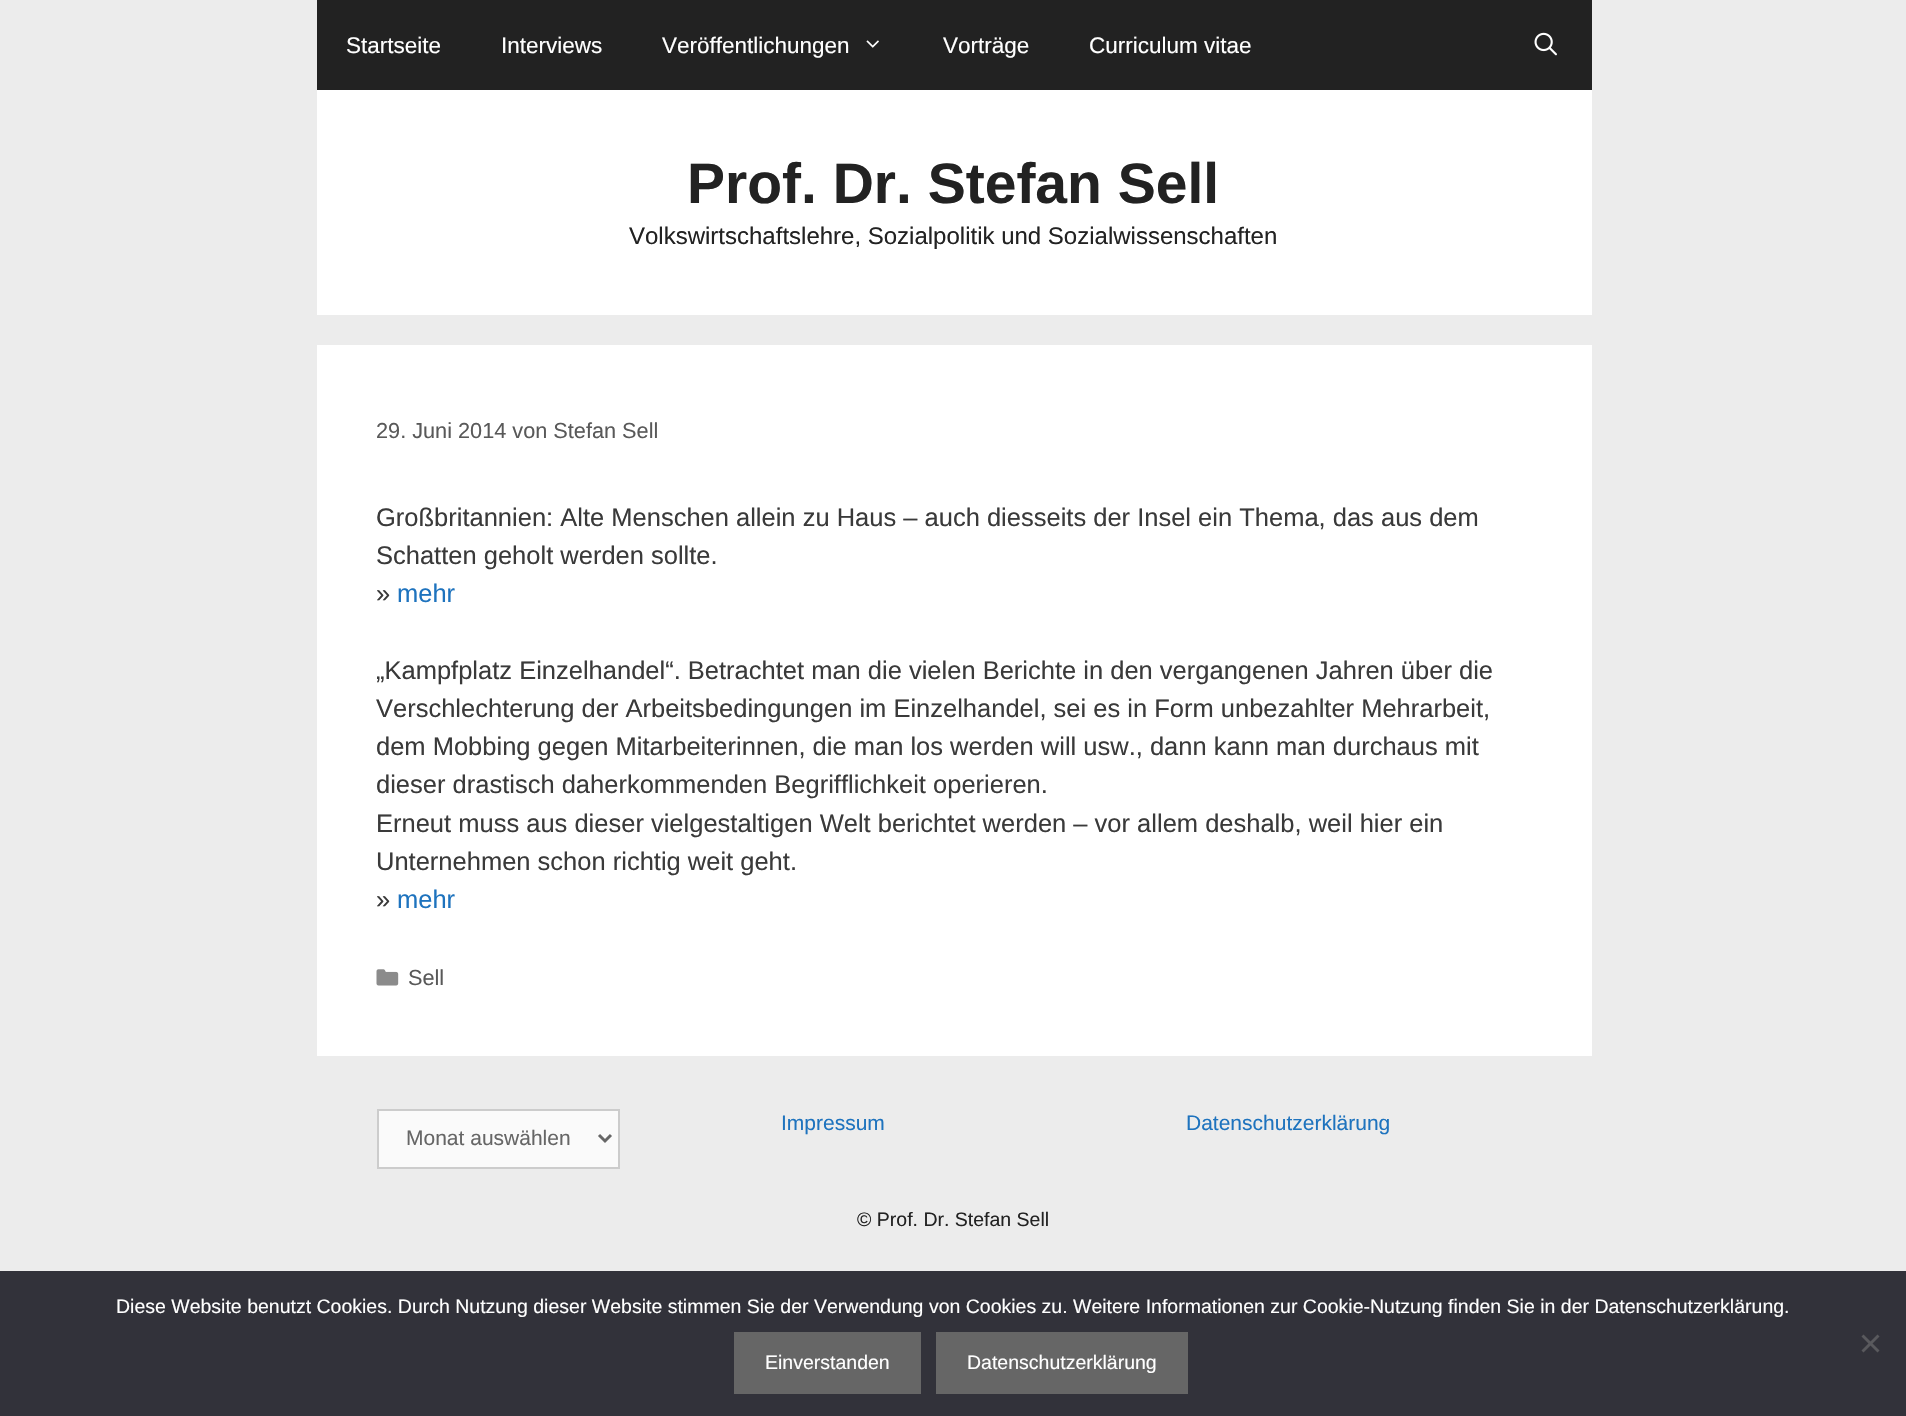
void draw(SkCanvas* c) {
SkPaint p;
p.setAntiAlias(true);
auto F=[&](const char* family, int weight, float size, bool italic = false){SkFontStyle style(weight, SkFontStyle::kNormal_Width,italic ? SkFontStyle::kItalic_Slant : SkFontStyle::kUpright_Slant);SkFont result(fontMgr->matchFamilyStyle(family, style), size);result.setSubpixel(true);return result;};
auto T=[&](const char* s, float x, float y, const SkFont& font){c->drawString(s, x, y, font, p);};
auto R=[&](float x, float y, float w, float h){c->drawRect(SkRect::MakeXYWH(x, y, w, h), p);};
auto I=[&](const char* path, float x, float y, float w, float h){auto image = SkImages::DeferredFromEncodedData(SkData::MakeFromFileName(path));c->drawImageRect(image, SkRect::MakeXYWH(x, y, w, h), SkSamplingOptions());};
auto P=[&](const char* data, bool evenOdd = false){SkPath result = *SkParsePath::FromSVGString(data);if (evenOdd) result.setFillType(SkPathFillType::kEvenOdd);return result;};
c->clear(0xffececec);
p.setColor(0xff222222);
R(317,0,1275,90);
auto f1 = F("Liberation Sans",400,22.5);
p.setColor(0xffffffff);
T("Startseite",346,53,f1);
T("Interviews",501,53,f1);
T("Veröffentlichungen",662,53,f1);
I("1.png",866,40,13,8);
T("Vorträge",943,53,f1);
T("Curriculum vitae",1089,53,f1);
I("2.png",1534,32,23,24);
R(317,90,1275,225);
auto f2 = F("Liberation Sans",700,57);
p.setColor(0xff222222);
T("Prof. Dr. Stefan Sell",687,203,f2);
auto f3 = F("Liberation Sans",400,24);
T("Volkswirtschaftslehre, Sozialpolitik und Sozialwissenschaften",629,244,f3);
p.setColor(0xffffffff);
R(317,345,1275,711);
auto f4 = F("Liberation Sans",400,21.7);
p.setColor(0xff595959);
T("29. Juni 2014 von Stefan Sell",376,438,f4);
auto f5 = F("Liberation Sans",400,25.5);
p.setColor(0xff3a3a3a);
T("Großbritannien: Alte Menschen allein zu Haus – auch diesseits der Insel ein Thema, das aus dem",376,526,f5);
T("Schatten geholt werden sollte.",376,564,f5);
T("»",376,602,f5);
p.setColor(0xff1e73be);
T("mehr",397,602,f5);
p.setColor(0xff3a3a3a);
T("„Kampfplatz Einzelhandel“. Betrachtet man die vielen Berichte in den vergangenen Jahren über die",376,679,f5);
T("Verschlechterung der Arbeitsbedingungen im Einzelhandel, sei es in Form unbezahlter Mehrarbeit,",376,717,f5);
T("dem Mobbing gegen Mitarbeiterinnen, die man los werden will usw., dann kann man durchaus mit",376,755,f5);
T("dieser drastisch daherkommenden Begrifflichkeit operieren.",376,793,f5);
T("Erneut muss aus dieser vielgestaltigen Welt berichtet werden – vor allem deshalb, weil hier ein",376,832,f5);
T("Unternehmen schon richtig weit geht.",376,870,f5);
T("»",376,908,f5);
p.setColor(0xff1e73be);
T("mehr",397,908,f5);
I("3.png",376,969,23,17);
p.setColor(0xff595959);
T("Sell",408,985,f4);
auto f6 = F("Liberation Sans",400,21);
p.setColor(0xff1e73be);
T("Impressum",781,1130,f6);
T("Datenschutzerklärung",1186,1130,f6);
p.setColor(0xfffafafa);
c->drawRect(SkRect::MakeXYWH(378,1110,241,58),p);
p.setStroke(true);
p.setStrokeWidth(2);
p.setColor(0xffcccccc);
c->drawRect(SkRect::MakeXYWH(378,1110,241,58),p);
p.setStrokeWidth(3);
p.setColor(0xff666666);
c->drawPath(P("M599 1135l6 6l6-6"),p);
p.setStroke(false);
T("Monat auswählen",406,1145,f6);
auto f7 = F("Liberation Sans",400,19.5);
p.setColor(0xff222222);
T("© Prof. Dr. Stefan Sell",857,1226,f7);
p.setColor(0xff32323a);
R(0,1271,1906,145);
p.setColor(0xffffffff);
T("Diese Website benutzt Cookies. Durch Nutzung dieser Website stimmen Sie der Verwendung von Cookies zu. Weitere Informationen zur Cookie-Nutzung finden Sie in der Datenschutzerklärung.",116,1313,f7);
p.setColor(0xff59595d);
c->drawPath(P("M1877.5 1334.5l2 2l-16 16l-2-2z"),p);
c->drawPath(P("M1861.5 1336.5l2-2l16 16l-2 2z"),p);
p.setColor(0xff666666);
R(734,1332,187,62);
p.setColor(0xffffffff);
T("Einverstanden",765,1369,f7);
p.setColor(0xff666666);
R(936,1332,252,62);
p.setColor(0xffffffff);
T("Datenschutzerklärung",967,1369,f7);
}
